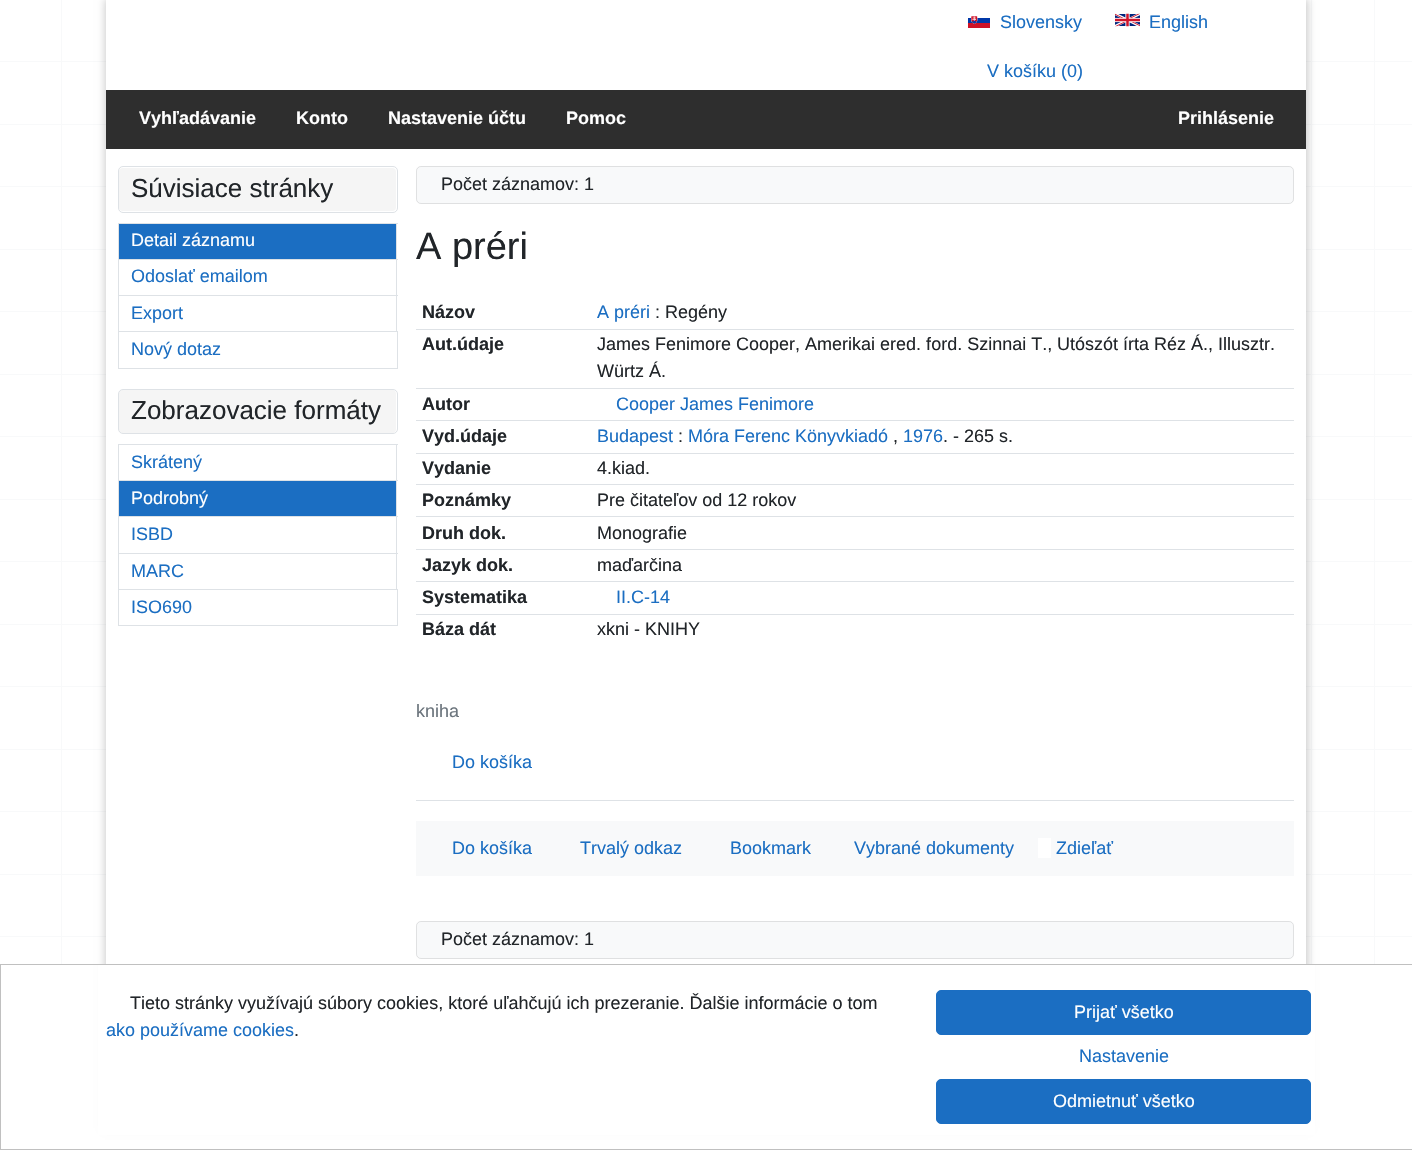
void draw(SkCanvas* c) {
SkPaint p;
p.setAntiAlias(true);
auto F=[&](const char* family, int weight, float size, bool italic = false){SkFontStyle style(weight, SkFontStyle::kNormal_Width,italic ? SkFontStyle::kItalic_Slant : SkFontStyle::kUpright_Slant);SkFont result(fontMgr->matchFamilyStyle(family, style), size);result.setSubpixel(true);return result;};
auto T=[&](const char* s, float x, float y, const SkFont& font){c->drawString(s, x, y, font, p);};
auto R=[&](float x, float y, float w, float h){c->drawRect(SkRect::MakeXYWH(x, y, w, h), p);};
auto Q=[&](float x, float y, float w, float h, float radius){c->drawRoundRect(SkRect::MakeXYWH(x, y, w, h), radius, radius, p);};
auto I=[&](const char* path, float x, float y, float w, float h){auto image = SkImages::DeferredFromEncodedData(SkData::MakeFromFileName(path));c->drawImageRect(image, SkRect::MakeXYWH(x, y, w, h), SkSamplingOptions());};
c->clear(0xffffffff);
I("1.png",61,0,1314,964);
p.setColor(0xfff8f9fa);
R(0,61,1412,1);
R(0,124,1412,1);
R(0,186,1412,1);
R(0,249,1412,1);
R(0,311,1412,1);
R(0,374,1412,1);
R(0,436,1412,1);
R(0,499,1412,1);
R(0,561,1412,1);
R(0,624,1412,1);
R(0,686,1412,1);
R(0,749,1412,1);
R(0,811,1412,1);
R(0,874,1412,1);
R(0,936,1412,1);
p.setColor(0x33000000);
p.setMaskFilter(SkMaskFilter::MakeBlur(kNormal_SkBlurStyle, 4));
c->drawRect(SkRect::MakeXYWH(105,-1,1203,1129),p);
p.setMaskFilter(nullptr);
p.setColor(0xffffffff);
R(106,0,1200,964);
I("2.png",968,16,22,12);
auto f1 = F("Liberation Sans",400,18);
p.setColor(0xff1b6ec2);
T("Slovensky",1000,28,f1);
I("3.png",1115,13,25,14);
T("English",1149,28,f1);
T("V košíku (0)",987,77,f1);
p.setColor(0xff2e2e2e);
R(106,90,1200,59);
auto f2 = F("Liberation Sans",700,18);
p.setColor(0xffffffff);
T("Vyhľadávanie",139,124,f2);
T("Konto",296,124,f2);
T("Nastavenie účtu",388,124,f2);
T("Pomoc",566,124,f2);
T("Prihlásenie",1178,124,f2);
p.setColor(0xfff5f5f5);
Q(119,168,277,43,4);
p.setStroke(true);
p.setStrokeWidth(1);
p.setColor(0xffdee2e6);
c->drawRoundRect(SkRect::MakeXYWH(118.5,166.5,279,46),4.5,4.5,p);
auto f3 = F("Liberation Sans",400,26);
p.setStroke(false);
p.setColor(0xff212529);
T("Súvisiace stránky",131,197,f3);
p.setColor(0xffdee2e6);
R(118,223,280,1);
R(396,223,1,36);
R(118,223,1,36);
p.setColor(0xff1b6ec2);
R(119,224,277,35);
p.setColor(0xffffffff);
T("Detail záznamu",131,246,f1);
p.setColor(0xffdee2e6);
R(118,259,280,1);
R(396,259,1,36);
R(118,259,1,36);
p.setColor(0xff1b6ec2);
T("Odoslať emailom",131,282,f1);
p.setColor(0xffdee2e6);
R(118,295,280,1);
R(396,295,1,36);
R(118,295,1,36);
p.setColor(0xff1b6ec2);
T("Export",131,319,f1);
p.setStroke(true);
p.setColor(0xffdee2e6);
c->drawRect(SkRect::MakeXYWH(118.5,331.5,279,37),p);
p.setStroke(false);
p.setColor(0xff1b6ec2);
T("Nový dotaz",131,355,f1);
p.setColor(0xfff5f5f5);
Q(119,390,277,43,4);
p.setStroke(true);
p.setColor(0xffdee2e6);
c->drawRoundRect(SkRect::MakeXYWH(118.5,389.5,279,44),4.5,4.5,p);
p.setStroke(false);
p.setColor(0xff212529);
T("Zobrazovacie formáty",131,419,f3);
p.setColor(0xffdee2e6);
R(118,444,280,1);
R(396,444,1,36);
R(118,444,1,36);
p.setColor(0xff1b6ec2);
T("Skrátený",131,468,f1);
p.setColor(0xffdee2e6);
R(118,480,280,1);
R(396,480,1,36);
R(118,480,1,36);
p.setColor(0xff1b6ec2);
R(119,481,277,35);
p.setColor(0xffffffff);
T("Podrobný",131,504,f1);
p.setColor(0xffdee2e6);
R(118,516,280,1);
R(396,516,1,37);
R(118,516,1,37);
p.setColor(0xff1b6ec2);
T("ISBD",131,540,f1);
p.setColor(0xffdee2e6);
R(118,553,280,1);
R(396,553,1,36);
R(118,553,1,36);
p.setColor(0xff1b6ec2);
T("MARC",131,577,f1);
p.setStroke(true);
p.setColor(0xffdee2e6);
c->drawRect(SkRect::MakeXYWH(118.5,589.5,279,36),p);
p.setStroke(false);
p.setColor(0xff1b6ec2);
T("ISO690",131,613,f1);
p.setColor(0xfff8f9fa);
Q(416,166,878,38,5);
p.setStroke(true);
p.setColor(0x1f333333);
c->drawRoundRect(SkRect::MakeXYWH(416.5,166.5,877,37),4.5,4.5,p);
p.setStroke(false);
p.setColor(0xff212529);
T("Počet záznamov: 1",441,190,f1);
auto f4 = F("Liberation Sans",400,38);
T("A préri",416,259,f4);
T("Názov",422,318,f2);
p.setColor(0xff1b6ec2);
T("A préri",597,318,f1);
p.setColor(0xff212529);
T(": Regény",655,318,f1);
T("Aut.údaje",422,350,f2);
p.setColor(0xffdee2e6);
R(416,329,878,1);
p.setColor(0xff212529);
T("James Fenimore Cooper, Amerikai ered. ford. Szinnai T.,",597,350,f1);
T("Utószót írta Réz Á., Illusztr.",1057,350,f1);
T("Würtz Á.",597,377,f1);
T("Autor",422,410,f2);
p.setColor(0xffdee2e6);
R(416,388,878,1);
p.setColor(0xff1b6ec2);
T("Cooper James Fenimore",616,410,f1);
p.setColor(0xff212529);
T("Vyd.údaje",422,442,f2);
p.setColor(0xffdee2e6);
R(416,420,878,1);
p.setColor(0xff1b6ec2);
T("Budapest",597,442,f1);
p.setColor(0xff212529);
T(":",678,442,f1);
p.setColor(0xff1b6ec2);
T("Móra Ferenc Könyvkiadó",688,442,f1);
T("1976",903,442,f1);
p.setColor(0xff212529);
T(". - 265 s.",943,442,f1);
T(",",893,442,f1);
T("Vydanie",422,474,f2);
p.setColor(0xffdee2e6);
R(416,453,878,1);
p.setColor(0xff212529);
T("4.kiad.",597,474,f1);
T("Poznámky",422,506,f2);
p.setColor(0xffdee2e6);
R(416,484,878,1);
p.setColor(0xff212529);
T("Pre čitateľov od 12 rokov",597,506,f1);
T("Druh dok.",422,539,f2);
p.setColor(0xffdee2e6);
R(416,516,878,1);
p.setColor(0xff212529);
T("Monografie",597,539,f1);
T("Jazyk dok.",422,571,f2);
p.setColor(0xffdee2e6);
R(416,549,878,1);
p.setColor(0xff212529);
T("maďarčina",597,571,f1);
T("Systematika",422,603,f2);
p.setColor(0xffdee2e6);
R(416,581,878,1);
p.setColor(0xff1b6ec2);
T("II.C-14",616,603,f1);
p.setColor(0xff212529);
T("Báza dát",422,635,f2);
p.setColor(0xffdee2e6);
R(416,614,878,1);
p.setColor(0xff212529);
T("xkni - KNIHY",597,635,f1);
p.setColor(0xff6c757d);
T("kniha",416,717,f1);
p.setColor(0xff1b6ec2);
T("Do košíka",452,768,f1);
p.setColor(0xffdee2e6);
R(416,800,878,1);
p.setColor(0xfff8f9fa);
R(416,821,878,55);
p.setColor(0xff1b6ec2);
T("Do košíka",452,854,f1);
T("Trvalý odkaz",580,854,f1);
T("Bookmark",730,854,f1);
T("Vybrané dokumenty",854,854,f1);
T("Zdieľať",1056,854,f1);
p.setColor(0xffffffff);
R(1038,838,13,20);
p.setColor(0xfff8f9fa);
Q(416,921,878,38,5);
p.setStroke(true);
p.setColor(0x1f333333);
c->drawRoundRect(SkRect::MakeXYWH(416.5,921.5,877,37),4.5,4.5,p);
p.setStroke(false);
p.setColor(0xff212529);
T("Počet záznamov: 1",441,945,f1);
p.setColor(0xffffffff);
R(98,965,1217,170);
p.setStroke(true);
p.setColor(0xffc0c0c0);
c->drawRect(SkRect::MakeXYWH(.5,964.5,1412,185),p);
p.setStroke(false);
p.setColor(0xff212529);
T("Tieto stránky využívajú súbory cookies, ktoré uľahčujú ich prezeranie. Ďalšie informácie o tom",130,1009,f1);
p.setColor(0xff1b6ec2);
T("ako používame cookies",106,1036,f1);
p.setColor(0xff212529);
T(".",294,1036,f1);
p.setColor(0xff1b6ec2);
c->drawRoundRect(SkRect::MakeXYWH(936.5,990.5,374,44),4.5,4.5,p);
p.setStroke(true);
c->drawRoundRect(SkRect::MakeXYWH(936.5,990.5,374,44),4.5,4.5,p);
p.setStroke(false);
p.setColor(0xffffffff);
T("Prijať všetko",1074,1018,f1);
p.setColor(0xff1b6ec2);
T("Nastavenie",1079,1062,f1);
c->drawRoundRect(SkRect::MakeXYWH(936.5,1079.5,374,44),4.5,4.5,p);
p.setStroke(true);
c->drawRoundRect(SkRect::MakeXYWH(936.5,1079.5,374,44),4.5,4.5,p);
p.setStroke(false);
p.setColor(0xffffffff);
T("Odmietnuť všetko",1053,1107,f1);
}
